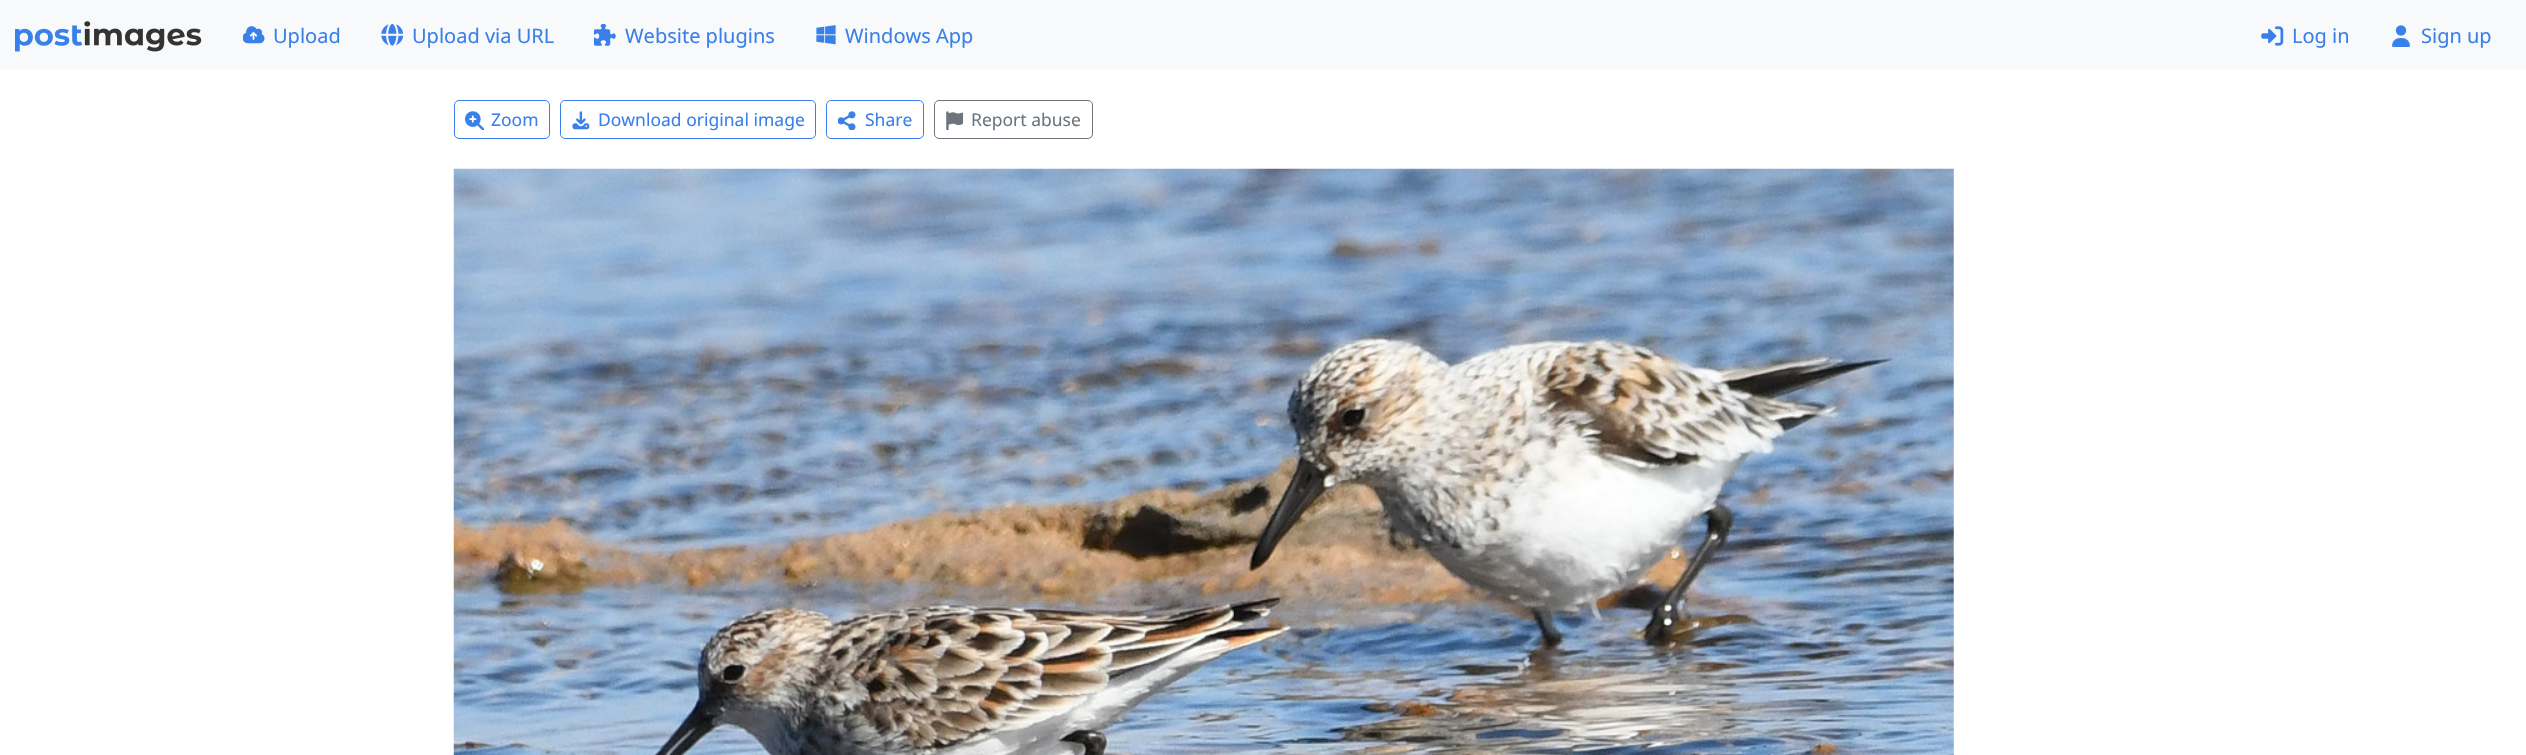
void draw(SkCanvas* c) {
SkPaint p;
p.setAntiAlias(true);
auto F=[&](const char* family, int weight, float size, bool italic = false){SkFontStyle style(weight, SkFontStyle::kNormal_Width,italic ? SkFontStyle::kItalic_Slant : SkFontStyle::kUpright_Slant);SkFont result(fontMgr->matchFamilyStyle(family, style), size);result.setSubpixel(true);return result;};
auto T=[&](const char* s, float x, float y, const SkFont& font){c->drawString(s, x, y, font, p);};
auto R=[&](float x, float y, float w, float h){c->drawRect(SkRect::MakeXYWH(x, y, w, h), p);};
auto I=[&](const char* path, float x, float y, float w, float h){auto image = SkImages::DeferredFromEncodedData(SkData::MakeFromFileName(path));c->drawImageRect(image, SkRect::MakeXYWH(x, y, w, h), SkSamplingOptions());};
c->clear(0xffffffff);
p.setColor(0xfff8f9fa);
R(0,0,2526,70);
I("1.png",15,21,187,31);
I("2.png",243,26,22,18);
auto f1 = F("Noto Sans",400,20);
p.setColor(0xff3a80ea);
T("Upload",273,43,f1);
I("3.png",381,24,22,22);
T("Upload via URL",412,43,f1);
I("4.png",594,24,22,22);
T("Website plugins",625,43,f1);
I("5.png",816,25,20,20);
T("Windows App",845,43,f1);
I("6.png",2261,26,23,20);
T("Log in",2292,43,f1);
I("7.png",2392,25,18,22);
T("Sign up",2421,43,f1);
p.setStroke(true);
p.setStrokeWidth(1);
c->drawRoundRect(SkRect::MakeXYWH(454.5,100.5,95,38),4.5,4.5,p);
I("8.png",465,111,19,19);
auto f2 = F("Noto Sans",400,17.5);
p.setStroke(false);
T("Zoom",491,126,f2);
p.setStroke(true);
c->drawRoundRect(SkRect::MakeXYWH(560.5,100.5,255,38),4.5,4.5,p);
I("9.png",572,111,18,19);
p.setStroke(false);
T("Download original image",598,126,f2);
p.setStroke(true);
c->drawRoundRect(SkRect::MakeXYWH(826.5,100.5,97,38),4.5,4.5,p);
I("10.png",838,111,18,19);
p.setStroke(false);
T("Share",865,126,f2);
p.setStroke(true);
p.setColor(0xff6c757d);
c->drawRoundRect(SkRect::MakeXYWH(934.5,100.5,158,38),4.5,4.5,p);
I("11.png",946,111,18,19);
p.setStroke(false);
T("Report abuse",971,126,f2);
I("12.png",453,168,1501,587);
}
